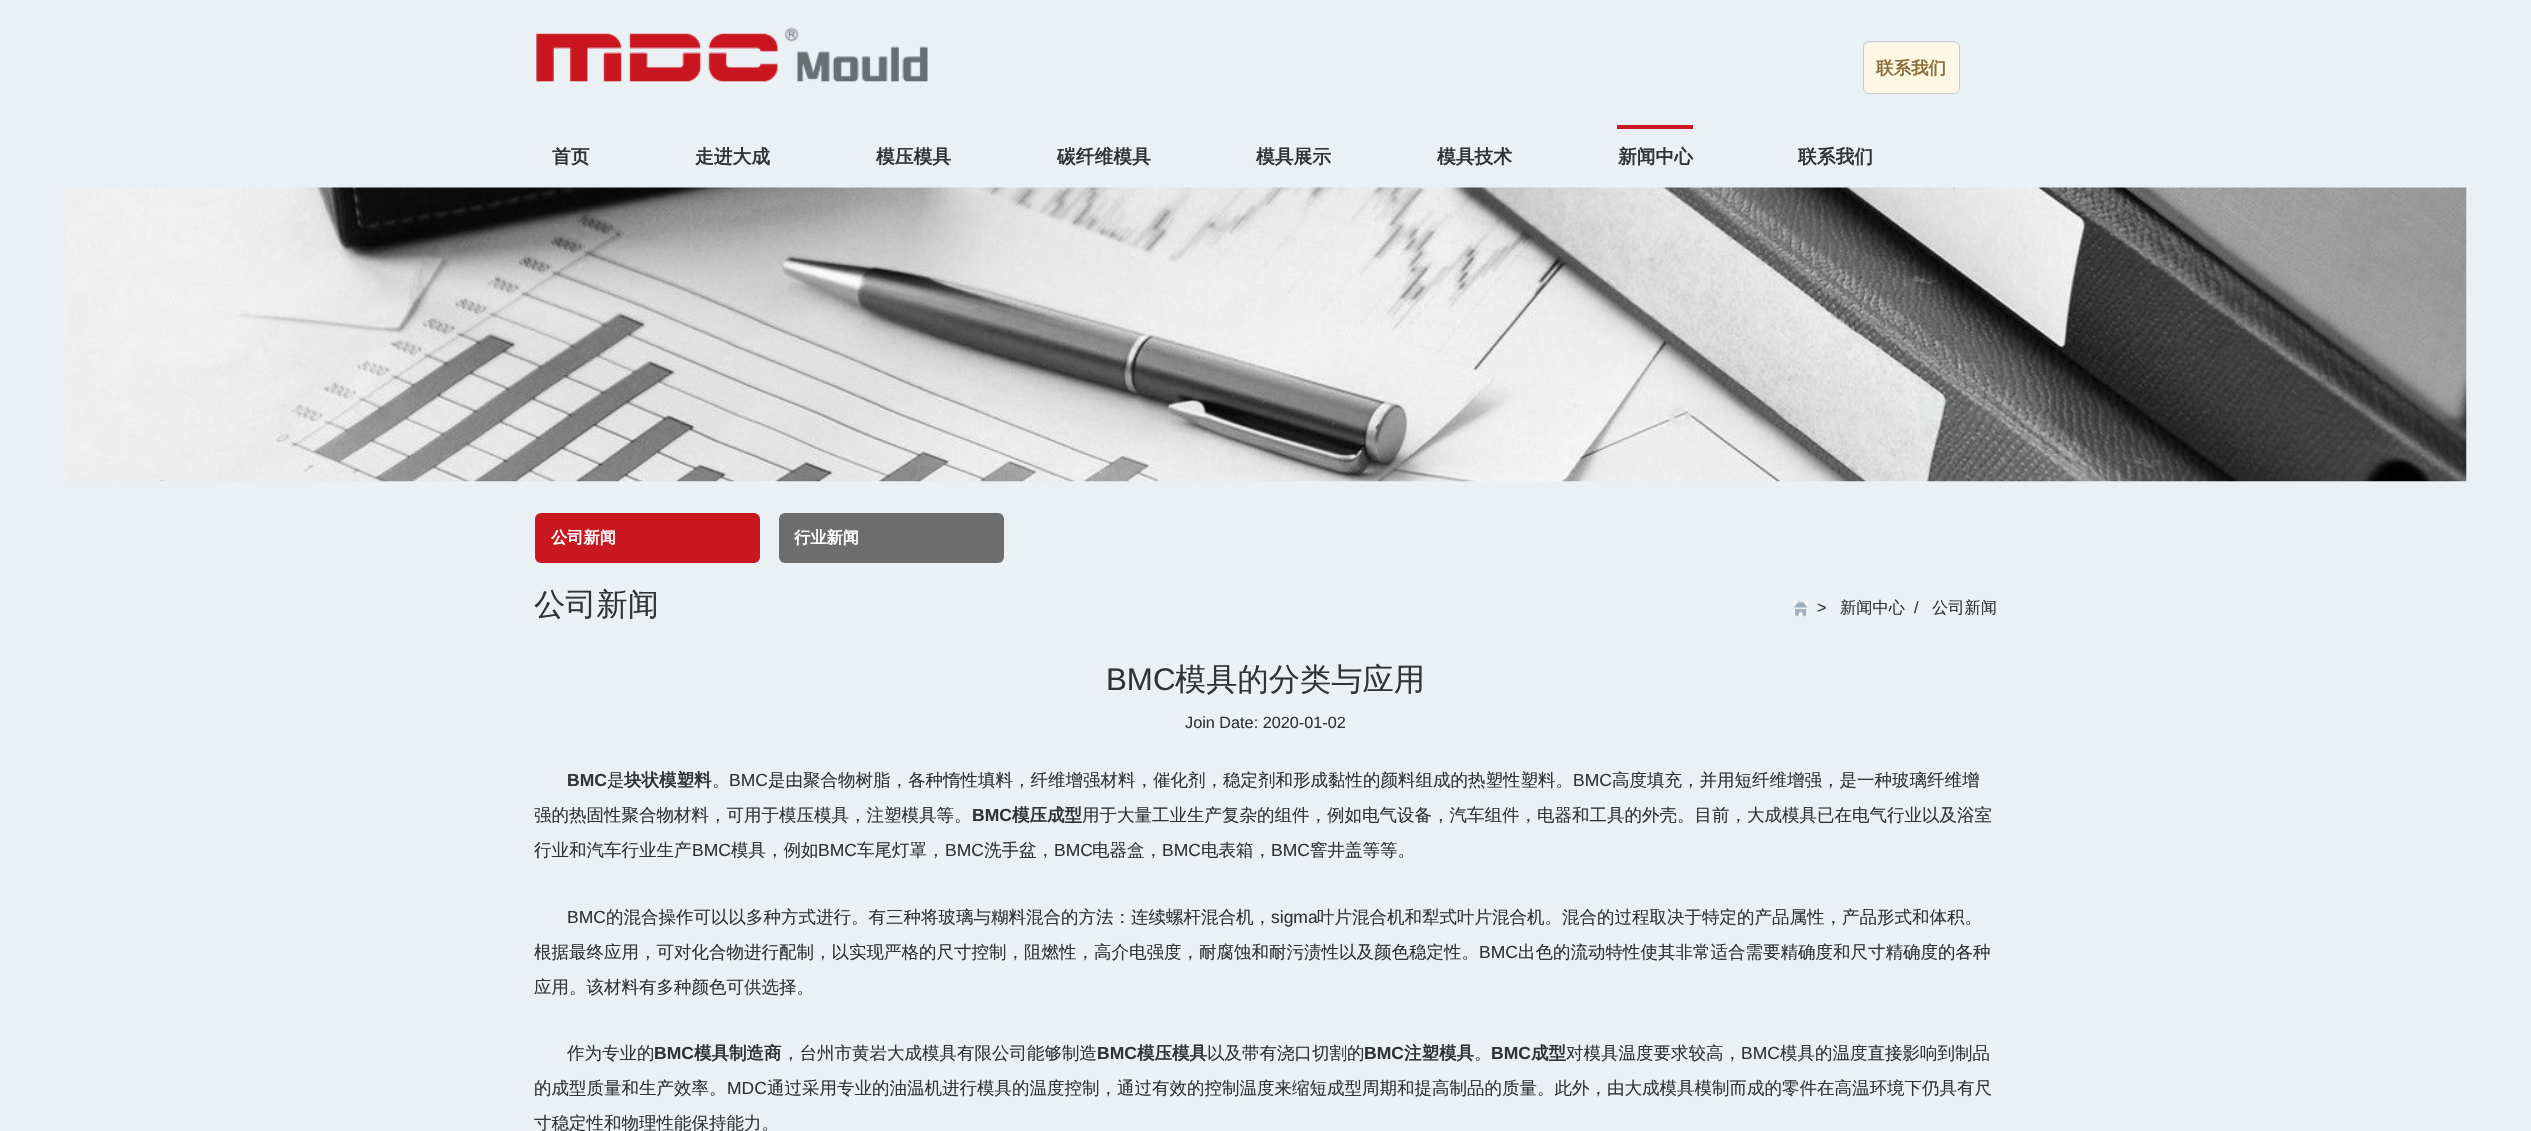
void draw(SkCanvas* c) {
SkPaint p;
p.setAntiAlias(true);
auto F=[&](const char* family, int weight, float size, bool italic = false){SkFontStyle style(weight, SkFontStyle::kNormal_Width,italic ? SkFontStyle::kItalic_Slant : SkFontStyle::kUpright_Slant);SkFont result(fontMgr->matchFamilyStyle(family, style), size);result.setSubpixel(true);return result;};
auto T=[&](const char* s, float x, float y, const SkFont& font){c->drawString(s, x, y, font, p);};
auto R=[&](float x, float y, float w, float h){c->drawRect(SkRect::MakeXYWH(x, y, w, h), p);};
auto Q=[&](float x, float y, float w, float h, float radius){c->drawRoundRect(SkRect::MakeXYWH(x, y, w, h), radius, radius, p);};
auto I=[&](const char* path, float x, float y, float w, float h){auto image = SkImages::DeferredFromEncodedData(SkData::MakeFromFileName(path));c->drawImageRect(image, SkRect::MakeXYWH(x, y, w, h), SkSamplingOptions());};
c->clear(0xffebf0f5);
I("1.png",536,27,392,55);
p.setStroke(true);
p.setStrokeWidth(1);
p.setColor(0xffcccccc);
c->drawRoundRect(SkRect::MakeXYWH(1863.5,41.5,96,52),5.5,5.5,p);
p.setStroke(false);
p.setColor(0xfffcf8e3);
Q(1864,43,95,50,6);
auto f1 = F("WenQuanYi Zen Hei",700,17.5);
p.setColor(0xff8a6d3b);
T("联系我们",1876,74,f1);
auto f2 = F("WenQuanYi Zen Hei",700,18.75);
p.setColor(0xff333333);
T("首页",552,163,f2);
T("走进大成",695,163,f2);
T("模压模具",876,163,f2);
T("碳纤维模具",1057,163,f2);
T("模具展示",1256,163,f2);
T("模具技术",1437,163,f2);
p.setColor(0xffc91820);
R(1617,125,76,4);
p.setColor(0xff333333);
T("新闻中心",1618,163,f2);
T("联系我们",1798,163,f2);
I("2.png",66,187,2401,295);
p.setColor(0xffc91820);
Q(535,513,225,50,6);
auto f3 = F("WenQuanYi Zen Hei",700,16.25);
p.setColor(0xffffffff);
T("公司新闻",551,543,f3);
p.setColor(0xff6d6d6d);
Q(779,513,225,50,6);
p.setColor(0xffffffff);
T("行业新闻",794,543,f3);
auto f4 = F("WenQuanYi Zen Hei",500,31.25);
p.setColor(0xff333333);
T("公司新闻",534,615,f4);
I("3.png",1793,601,15,16);
auto f5 = F("Liberation Sans",400,16.25);
T(">",1817,613,f5);
auto f6 = F("WenQuanYi Zen Hei",500,16.25);
T("新闻中心",1840,613,f6);
T("/",1914,613,f5);
T("公司新闻",1932,613,f6);
auto f7 = F("Liberation Sans",400,31.25);
T("BMC",1106,690,f7);
T("模具的分类与应用",1175,690,f4);
T("Join Date: 2020-01-02",1185,728,f5);
auto f8 = F("Liberation Sans",700,17.5);
T("BMC",567,786,f8);
auto f9 = F("WenQuanYi Zen Hei",500,17.5);
T("是",607,786,f9);
T("块状模塑料",624,786,f1);
T("。",712,786,f9);
auto f10 = F("Liberation Sans",400,17.5);
T("BMC",729,786,f10);
T("是由聚合物树脂，各种惰性填料，纤维增强材料，催化剂，稳定剂和形成黏性的颜料组成的热塑性塑料。",768,786,f9);
T("BMC",1573,786,f10);
T("高度填充，并用短纤维增强，是一种玻璃纤维增",1612,786,f9);
T("强的热固性聚合物材料，可用于模压模具，注塑模具等。",534,821,f9);
T("BMC",972,821,f8);
T("模压成型",1012,821,f1);
T("用于大量工业生产复杂的组件，例如电气设备，汽车组件，电器和工具的外壳。目前，大成模具已在电气行业以及浴室",1082,821,f9);
T("行业和汽车行业生产",534,856,f9);
T("BMC",692,856,f10);
T("模具，例如",731,856,f9);
T("BMC",818,856,f10);
T("车尾灯罩，",857,856,f9);
T("BMC",945,856,f10);
T("洗手盆，",984,856,f9);
T("BMC",1054,856,f10);
T("电器盒，",1092,856,f9);
T("BMC",1162,856,f10);
T("电表箱，",1201,856,f9);
T("BMC",1271,856,f10);
T("窨井盖等等。",1310,856,f9);
T("BMC",567,923,f10);
T("的混合操作可以以多种方式进行。有三种将玻璃与糊料混合的方法：连续螺杆混合机，",606,923,f9);
T("sigma",1271,923,f10);
T("叶片混合机和犁式叶片混合机。混合的过程取决于特定的产品属性，产品形式和体积。",1317,923,f9);
T("根据最终应用，可对化合物进行配制，以实现严格的尺寸控制，阻燃性，高介电强度，耐腐蚀和耐污渍性以及颜色稳定性。",534,958,f9);
T("BMC",1479,958,f10);
T("出色的流动特性使其非常适合需要精确度和尺寸精确度的各种",1518,958,f9);
T("应用。该材料有多种颜色可供选择。",534,993,f9);
T("作为专业的",567,1059,f9);
T("BMC",654,1059,f8);
T("模具制造商",694,1059,f1);
T("，台州市黄岩大成模具有限公司能够制造",782,1059,f9);
T("BMC",1097,1059,f8);
T("模压模具",1137,1059,f1);
T("以及带有浇口切割的",1207,1059,f9);
T("BMC",1364,1059,f8);
T("注塑模具",1404,1059,f1);
T("。",1474,1059,f9);
T("BMC",1491,1059,f8);
T("成型",1531,1059,f1);
T("对模具温度要求较高，",1566,1059,f9);
T("BMC",1741,1059,f10);
T("模具的温度直接影响到制品",1780,1059,f9);
T("的成型质量和生产效率。",534,1094,f9);
T("MDC",727,1094,f10);
T("通过采用专业的油温机进行模具的温度控制，通过有效的控制温度来缩短成型周期和提高制品的质量。此外，由大成模具模制而成的零件在高温环境下仍具有尺",767,1094,f9);
T("寸稳定性和物理性能保持能力。",534,1129,f9);
}
